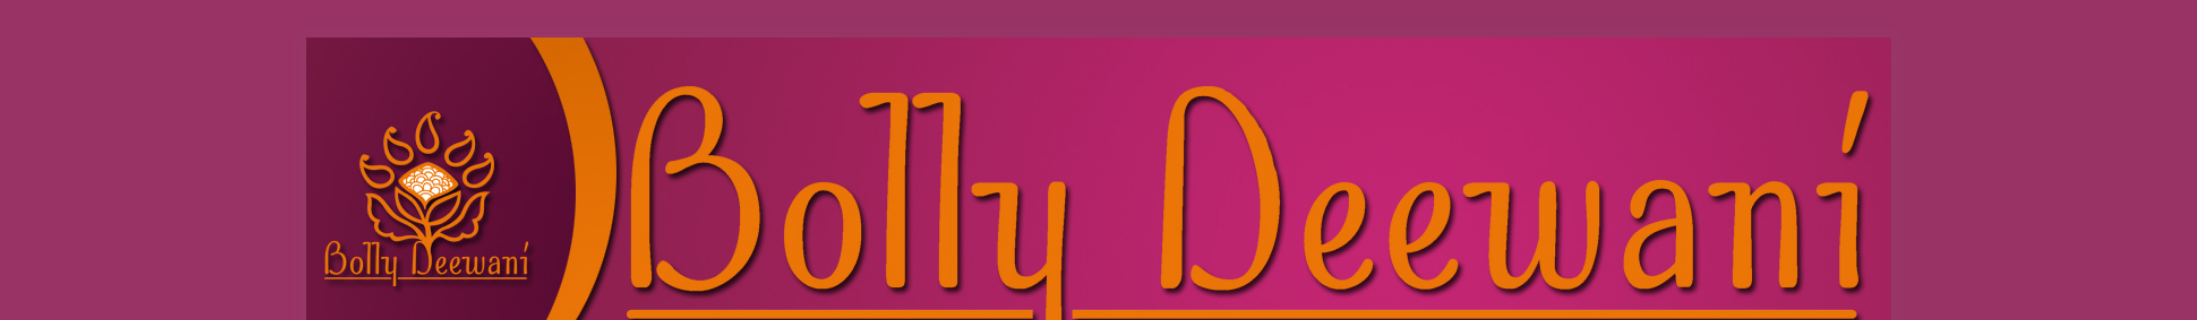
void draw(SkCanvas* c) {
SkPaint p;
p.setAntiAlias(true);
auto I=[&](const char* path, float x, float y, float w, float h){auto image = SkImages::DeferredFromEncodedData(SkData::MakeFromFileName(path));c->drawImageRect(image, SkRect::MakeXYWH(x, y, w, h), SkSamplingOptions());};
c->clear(0xff993366);
p.setColor(0x4d646464);
p.setMaskFilter(SkMaskFilter::MakeBlur(kNormal_SkBlurStyle, 4));
c->drawRect(SkRect::MakeXYWH(306,40,1585,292),p);
p.setMaskFilter(nullptr);
I("1.png",306,37,1586,283);
}
